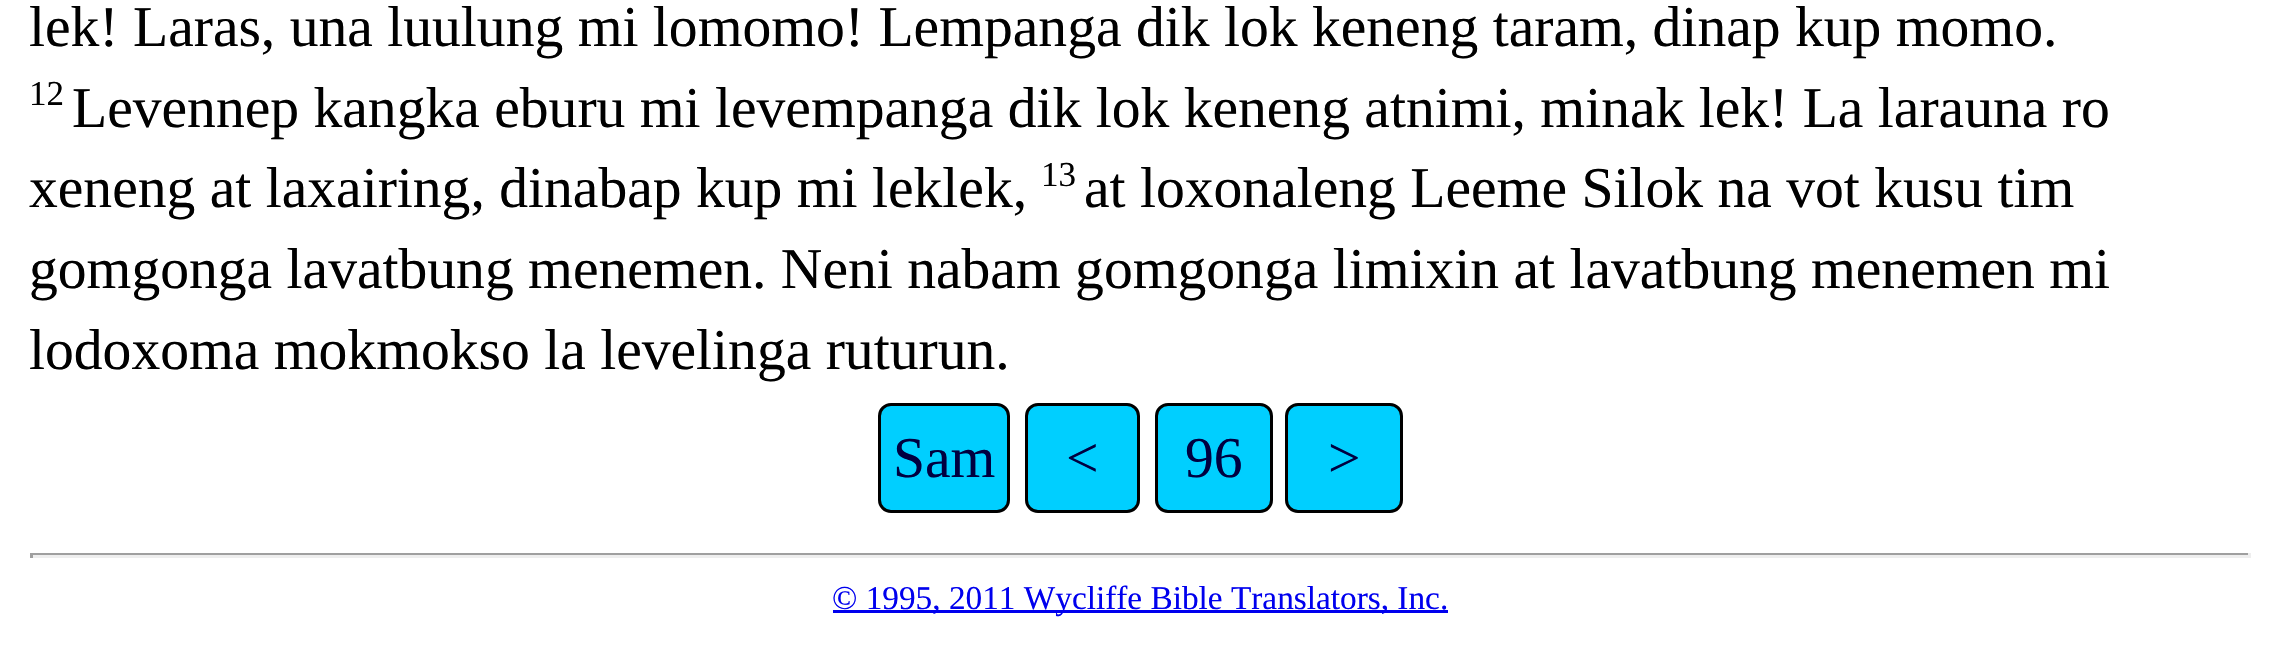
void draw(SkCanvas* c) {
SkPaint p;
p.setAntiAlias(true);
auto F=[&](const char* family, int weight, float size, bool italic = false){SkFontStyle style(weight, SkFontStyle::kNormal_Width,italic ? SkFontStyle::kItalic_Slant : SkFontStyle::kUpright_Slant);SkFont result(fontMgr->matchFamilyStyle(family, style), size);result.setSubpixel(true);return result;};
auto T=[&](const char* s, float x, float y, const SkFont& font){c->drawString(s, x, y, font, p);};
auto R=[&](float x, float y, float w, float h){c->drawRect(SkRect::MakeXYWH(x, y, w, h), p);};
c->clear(0xffffffff);
auto f1 = F("Liberation Serif",400,57.6);
p.setColor(0xff000000);
T("lek! Laras, una luulung mi lomomo! Lempanga dik lok keneng taram, dinap kup momo.",29,46,f1);
auto f2 = F("Liberation Serif",400,35);
T("12",29,105,f2);
T("Levennep kangka eburu mi levempanga dik lok keneng atnimi, minak lek! La larauna ro",72,127,f1);
T("xeneng at laxairing, dinabap kup mi leklek,",29,207,f1);
T("13",1041,186,f2);
T("at loxonaleng Leeme Silok na vot kusu tim",1084,207,f1);
T("gomgonga lavatbung menemen. Neni nabam gomgonga limixin at lavatbung menemen mi",29,288,f1);
T("lodoxoma mokmokso la levelinga ruturun.",29,369,f1);
p.setColor(0xff00cfff);
c->drawRoundRect(SkRect::MakeXYWH(879.5,404.5,129,107),11.5,11.5,p);
p.setStroke(true);
p.setStrokeWidth(3);
p.setColor(0xff000000);
c->drawRoundRect(SkRect::MakeXYWH(879.5,404.5,129,107),11.5,11.5,p);
p.setStroke(false);
p.setColor(0xff000040);
T("Sam",893,477,f1);
p.setColor(0xff00cfff);
c->drawRoundRect(SkRect::MakeXYWH(1026.5,404.5,112,107),11.5,11.5,p);
p.setStroke(true);
p.setColor(0xff000000);
c->drawRoundRect(SkRect::MakeXYWH(1026.5,404.5,112,107),11.5,11.5,p);
p.setStroke(false);
p.setColor(0xff000040);
T("<",1066,477,f1);
p.setColor(0xff00cfff);
c->drawRoundRect(SkRect::MakeXYWH(1156.5,404.5,115,107),11.5,11.5,p);
p.setStroke(true);
p.setColor(0xff000000);
c->drawRoundRect(SkRect::MakeXYWH(1156.5,404.5,115,107),11.5,11.5,p);
p.setStroke(false);
p.setColor(0xff000040);
T("96",1185,477,f1);
p.setColor(0xff00cfff);
c->drawRoundRect(SkRect::MakeXYWH(1286.5,404.5,115,107),11.5,11.5,p);
p.setStroke(true);
p.setColor(0xff000000);
c->drawRoundRect(SkRect::MakeXYWH(1286.5,404.5,115,107),11.5,11.5,p);
p.setStroke(false);
p.setColor(0xff000040);
T(">",1328,477,f1);
p.setColor(0xff9f9f9f);
R(30,553,2220,2);
p.setColor(0xffeeeeee);
R(2248,553,3,5);
R(30,555,2220,3);
p.setColor(0xff9f9f9f);
R(30,553,3,5);
p.setColor(0xff0000ee);
R(833,610,615,3);
auto f3 = F("Liberation Serif",400,33.3);
T("© 1995, 2011 Wycliffe Bible Translators, Inc.",832,609,f3);
}
